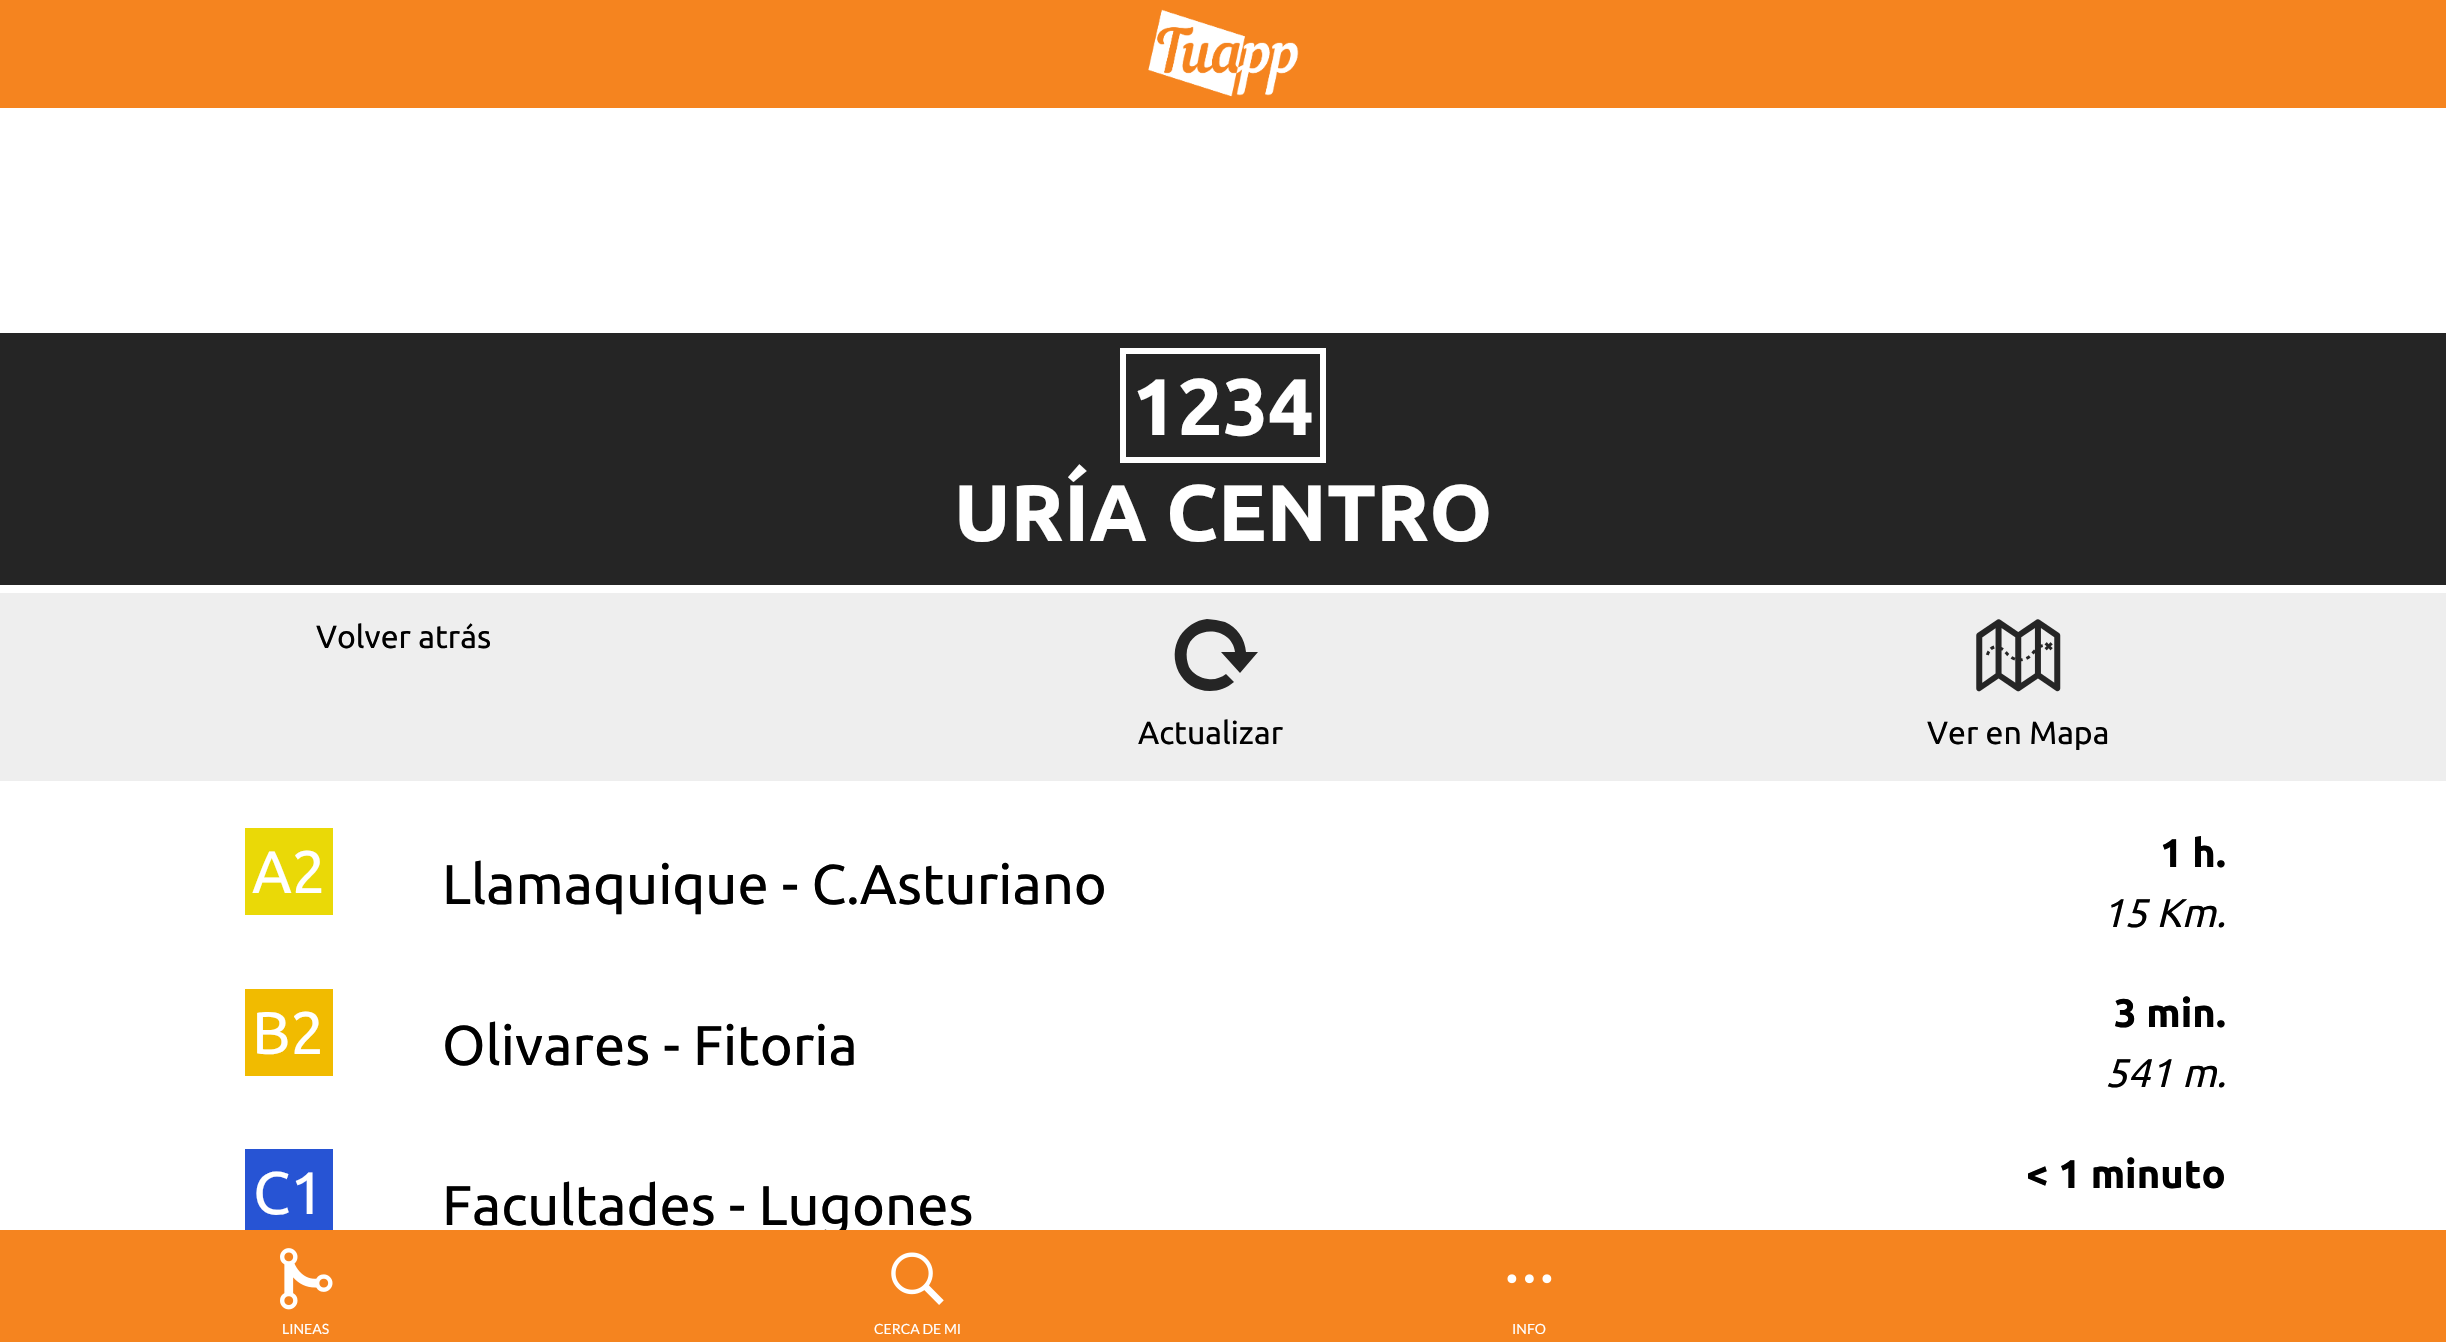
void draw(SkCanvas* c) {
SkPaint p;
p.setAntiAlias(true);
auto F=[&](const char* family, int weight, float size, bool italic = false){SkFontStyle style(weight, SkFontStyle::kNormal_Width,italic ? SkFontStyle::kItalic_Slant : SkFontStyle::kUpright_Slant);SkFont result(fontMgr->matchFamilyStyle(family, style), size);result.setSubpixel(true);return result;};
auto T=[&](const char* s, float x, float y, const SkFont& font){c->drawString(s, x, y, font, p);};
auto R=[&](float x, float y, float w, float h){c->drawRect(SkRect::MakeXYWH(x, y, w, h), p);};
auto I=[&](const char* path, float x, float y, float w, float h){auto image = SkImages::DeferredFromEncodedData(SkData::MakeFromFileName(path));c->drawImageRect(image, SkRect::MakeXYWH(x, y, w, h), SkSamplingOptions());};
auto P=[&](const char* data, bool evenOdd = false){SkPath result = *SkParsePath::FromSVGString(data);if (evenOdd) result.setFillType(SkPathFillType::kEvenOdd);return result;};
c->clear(0xffffffff);
p.setColor(0xfff5841f);
R(0,0,2446,108);
I("1.png",1148,9,151,88);
p.setColor(0xff252525);
R(0,333,2446,252);
p.setStroke(true);
p.setStrokeWidth(6);
p.setColor(0xffffffff);
c->drawRect(SkRect::MakeXYWH(1123,351,200,109),p);
auto f1 = F("Ubuntu",700,80);
p.setStroke(false);
T("1234",1132,435,f1);
T("URÍA CENTRO",954,541,f1);
p.setColor(0xffeeeeee);
R(0,593,2446,188);
auto f2 = F("Ubuntu",400,32);
p.setColor(0xff000000);
T("Volver atrás",316,648,f2);
p.setColor(0xff252525);
c->drawPath(P("M1240 673l-19-21h14c-3-26-43-28-48-2c-1 6 0 12 2 17c4 7 11 11 19 12c6 1 13-1 18-5l8 8c-7 6-15 9-24 9c-29 0-44-32-30-55c6-9 16-16 27-17l9 1l9 2c12 5 20 17 21 30h12z"),p);
p.setColor(0xff000000);
T("Actualizar",1138,744,f2);
I("2.png",1976,619,85,73);
T("Ver en Mapa",1927,744,f2);
p.setColor(0xffead907);
R(245,828,88,87);
auto f3 = F("Ubuntu",400,60);
p.setColor(0xffffffff);
T("A2",252,893,f3);
auto f4 = F("Ubuntu",400,56);
p.setColor(0xff000000);
T("Llamaquique - C.Asturiano",442,904,f4);
auto f5 = F("Ubuntu",700,40);
T("1 h.",2160,867,f5);
auto f6 = F("Ubuntu",400,40,true);
T("15 Km.",2102,927,f6);
p.setColor(0xfff1bb00);
R(245,989,88,87);
p.setColor(0xffffffff);
T("B2",252,1054,f3);
p.setColor(0xff000000);
T("Olivares - Fitoria",442,1065,f4);
T("3 min.",2114,1027,f5);
T("541 m.",2105,1087,f6);
p.setColor(0xff2754d4);
R(245,1149,88,81);
p.setColor(0xffffffff);
T("C1",253,1214,f3);
p.setColor(0xff000000);
T("Facultades - Lugones",442,1225,f4);
T("< 1 minuto",2026,1188,f5);
p.setColor(0xfff5841f);
R(0,1230,2446,112);
I("3.png",280,1248,53,62);
auto f7 = F("Lato",400,14);
p.setColor(0xffffffff);
T("LINEAS",282,1334,f7);
I("4.png",891,1252,53,53);
T("CERCA DE MI",874,1334,f7);
I("5.png",1507,1274,45,10);
T("INFO",1512,1334,f7);
}
